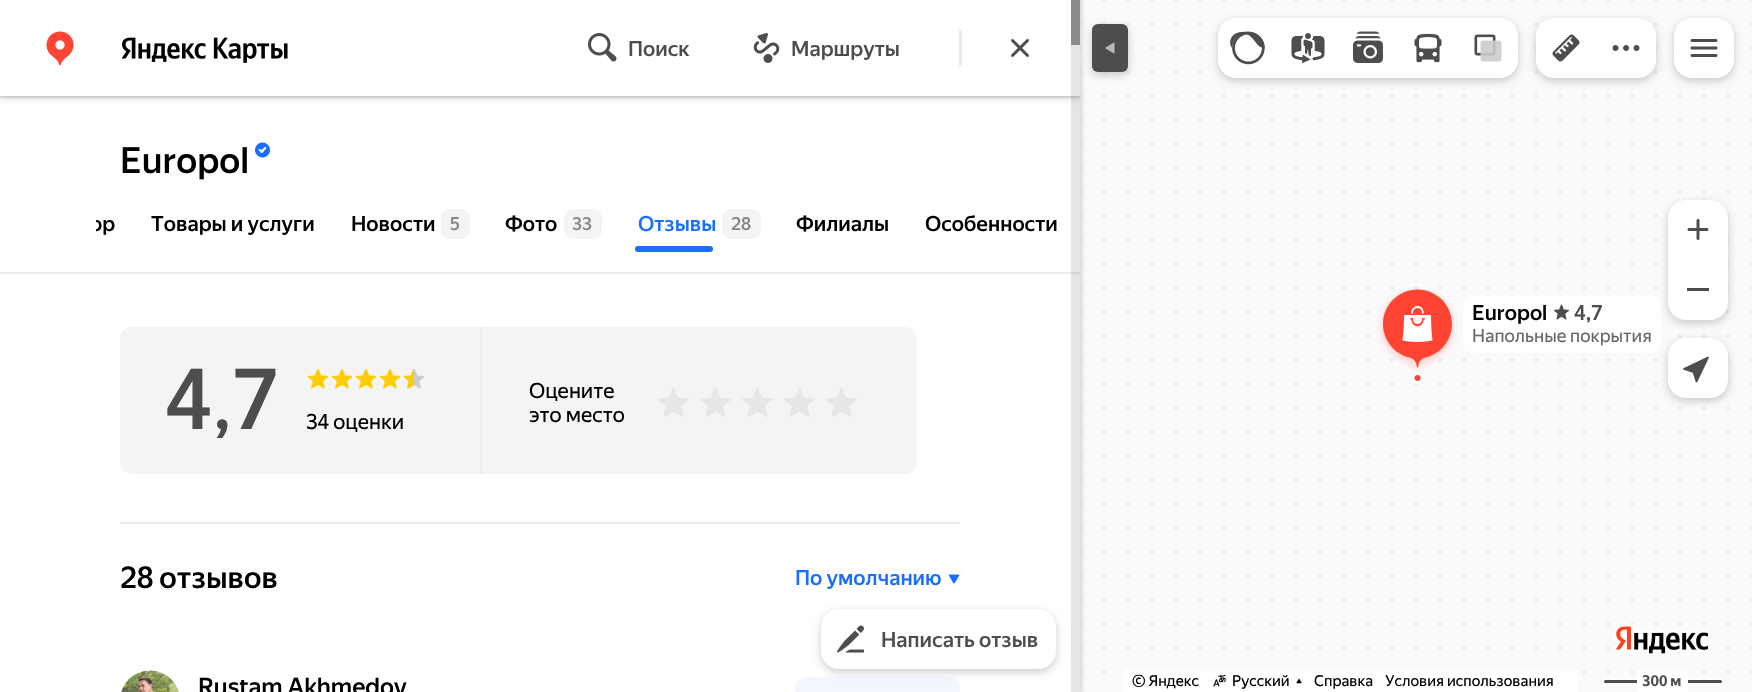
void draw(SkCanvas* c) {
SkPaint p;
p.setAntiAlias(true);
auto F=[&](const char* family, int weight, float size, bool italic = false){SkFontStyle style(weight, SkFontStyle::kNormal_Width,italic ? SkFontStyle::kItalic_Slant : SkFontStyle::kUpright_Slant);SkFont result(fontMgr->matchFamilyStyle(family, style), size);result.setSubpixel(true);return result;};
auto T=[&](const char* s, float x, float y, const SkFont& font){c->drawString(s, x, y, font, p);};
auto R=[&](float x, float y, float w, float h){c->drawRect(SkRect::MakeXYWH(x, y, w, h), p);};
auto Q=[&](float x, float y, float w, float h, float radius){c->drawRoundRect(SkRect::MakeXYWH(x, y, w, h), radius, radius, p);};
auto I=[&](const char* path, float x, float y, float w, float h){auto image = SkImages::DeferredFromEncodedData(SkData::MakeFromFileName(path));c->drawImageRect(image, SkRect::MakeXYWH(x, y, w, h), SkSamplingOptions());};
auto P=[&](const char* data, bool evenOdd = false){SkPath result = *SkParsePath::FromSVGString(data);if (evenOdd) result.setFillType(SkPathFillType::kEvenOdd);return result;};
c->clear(0xffffffff);
I("1.png",1080,0,672,692);
p.setColor(0x1a000000);
p.setMaskFilter(SkMaskFilter::MakeBlur(kNormal_SkBlurStyle, 1.5));
c->drawRect(SkRect::MakeXYWH(3,0,1080,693),p);
p.setMaskFilter(nullptr);
p.setColor(0xffffffff);
R(1,98,1079,594);
p.setColor(0xffebebeb);
R(0,96,1080,2);
c->save();
c->clipRect(SkRect::MakeXYWH(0,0,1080,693));
p.setColor(0x33000000);
p.setMaskFilter(SkMaskFilter::MakeBlur(kNormal_SkBlurStyle, 3));
c->drawRect(SkRect::MakeXYWH(0,92,1080,6),p);
p.setMaskFilter(nullptr);
c->restore();
p.setMaskFilter(SkMaskFilter::MakeBlur(kNormal_SkBlurStyle, 4.5));
c->drawRoundRect(SkRect::MakeXYWH(1092,27,36,48),6,6,p);
p.setMaskFilter(nullptr);
p.setColor(0xffffffff);
R(0,0,1080,96);
I("2.png",46,31,28,35);
I("3.png",121,37,167,26);
I("4.png",588,33,29,29);
auto f1 = F("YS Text",500,21);
p.setColor(0xff4d4d4d);
T("Поиск",628,56,f1);
I("5.png",753,33,27,30);
T("Маршруты",791,56,f1);
p.setColor(0xffebebeb);
R(959,30,3,36);
I("6.png",1011,39,18,18);
auto f2 = F("YS Text",500,36);
p.setColor(0xff000000);
T("Europol",120,173,f2);
I("7.png",255,142,15,16);
c->save();
c->clipRect(SkRect::MakeXYWH(96,182,984,84));
T("ор",90,231,f1);
c->restore();
T("Товары и услуги",151,231,f1);
T("Новости",351,231,f1);
p.setColor(0xfff4f4f4);
Q(441,209,29,30,9);
auto f3 = F("YS Text",500,18);
p.setColor(0xff878787);
T("5",450,230,f3);
p.setColor(0xff000000);
T("Фото",505,231,f1);
p.setColor(0xfff4f4f4);
Q(564,209,38,30,9);
p.setColor(0xff878787);
T("33",572,230,f3);
p.setColor(0xff196dff);
T("Отзывы",638,231,f1);
p.setColor(0xfff4f4f4);
Q(722,209,39,30,9);
p.setColor(0xff878787);
T("28",731,230,f3);
p.setColor(0xff000000);
T("Филиалы",796,231,f1);
T("Особенности",925,231,f1);
p.setColor(0xff196dff);
Q(635,246,78,6,3);
p.setColor(0xffebebeb);
R(0,272,1080,2);
p.setColor(0xfff4f4f4);
c->drawPath(P("M132 327h348v147h-348c-6.5 0-12-5.5-12-12v-123c0-6.5 5.5-12 12-12z"),p);
auto f4 = F("YS Text",500,84);
p.setColor(0xff4d4d4d);
T("4",165,429,f4);
auto f5 = F("YS Text",400,84);
T(",",212,429,f5);
T("7",232,429,f4);
I("8.png",307,369,22,20);
I("8.png",331,369,22,20);
I("8.png",355,369,22,20);
I("8.png",379,369,22,20);
I("9.png",403,369,21,20);
auto f6 = F("YS Text",400,21);
p.setColor(0xff000000);
T("34 оценки",306,429,f6);
p.setColor(0xfff4f4f4);
c->drawPath(P("M480 327h425c6.5 0 12 5.5 12 12v123c0 6.5-5.5 12-12 12h-425z"),p);
p.setColor(0xffebebeb);
R(480,327,2,147);
p.setColor(0xff000000);
T("Оцените",529,398,f6);
T("это место",529,422,f6);
I("10.png",658,387,31,30);
I("10.png",700,387,31,30);
I("10.png",742,387,31,30);
I("10.png",784,387,31,30);
I("10.png",826,387,31,30);
p.setColor(0xffebebeb);
R(120,522,840,2);
auto f7 = F("YS Text",500,30);
p.setColor(0xff000000);
T("28 отзывов",120,588,f7);
p.setColor(0xff196dff);
T("По умолчанию",795,585,f1);
I("11.png",948,574,12,10);
I("12.png",121,670,58,22);
auto f8 = F("YS Text",500,24);
p.setColor(0xff000000);
T("Rustam Akhmedov",198,695,f8);
p.setColor(0xfff3f6fc);
c->drawPath(P("M807 677h141c6.5 0 12 5.5 12 12v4h-165v-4c0-6.5 5.5-12 12-12z"),p);
p.setColor(0x33000000);
p.setMaskFilter(SkMaskFilter::MakeBlur(kNormal_SkBlurStyle, 4.5));
c->drawRoundRect(SkRect::MakeXYWH(821,612,235,60),18,18,p);
p.setMaskFilter(nullptr);
p.setColor(0xffffffff);
Q(821,609,235,60,18);
I("13.png",837,625,28,28);
p.setColor(0xff4d4d4d);
T("Написать отзыв",881,647,f1);
p.setColor(0xff8a8a8a);
R(1071,0,9,45);
p.setColor(0x1a000000);
R(1071,45,9,647);
p.setColor(0xff4d4d4d);
Q(1092,24,36,48,6);
I("14.png",1105,42,10,12);
p.setColor(0x33000000);
p.setMaskFilter(SkMaskFilter::MakeBlur(kNormal_SkBlurStyle, 4.5));
c->drawRoundRect(SkRect::MakeXYWH(1218,21,300,60),18,18,p);
p.setMaskFilter(nullptr);
p.setColor(0xffffffff);
c->drawPath(P("M1236 18h42v60h-42c-10 0-18-8-18-18v-24c0-10 8-18 18-18z"),p);
I("15.png",1230,31,35,34);
R(1278,18,180,60);
I("16.png",1291,33,34,30);
c->drawPath(P("M1458 18h42c10 0 18 8 18 18v24c0 10-8 18-18 18h-42z"),p);
I("17.png",1474,34,28,28);
I("18.png",1353,31,30,32);
I("19.png",1414,33,28,30);
p.setColor(0x33000000);
p.setMaskFilter(SkMaskFilter::MakeBlur(kNormal_SkBlurStyle, 4.5));
c->drawRoundRect(SkRect::MakeXYWH(1536,21,120,60),18,18,p);
p.setMaskFilter(nullptr);
p.setColor(0xffffffff);
c->drawPath(P("M1554 18h42v60h-42c-10 0-18-8-18-18v-24c0-10 8-18 18-18z"),p);
I("20.png",1552,34,28,28);
c->drawPath(P("M1596 18h42c10 0 18 8 18 18v24c0 10-8 18-18 18h-42z"),p);
I("21.png",1612,45,28,6);
p.setColor(0x33000000);
p.setMaskFilter(SkMaskFilter::MakeBlur(kNormal_SkBlurStyle, 4.5));
c->drawRoundRect(SkRect::MakeXYWH(1674,21,60,60),18,18,p);
p.setMaskFilter(nullptr);
p.setColor(0xffffffff);
Q(1674,18,60,60,18);
I("22.png",1690,39,28,18);
p.setColor(0xe6ffffff);
Q(1463,296,198,57,9);
p.setColor(0x33000000);
p.setMaskFilter(SkMaskFilter::MakeBlur(kNormal_SkBlurStyle, 4.5));
c->drawRoundRect(SkRect::MakeXYWH(1668,203,60,120),18,18,p);
p.setMaskFilter(nullptr);
p.setColor(0xffffffff);
c->drawPath(P("M1686 200h24c10 0 18 8 18 18v42h-60v-42c0-10 8-18 18-18z"),p);
I("23.png",1687,219,22,21);
c->drawPath(P("M1668 260h60v42c0 10-8 18-18 18h-24c-10 0-18-8-18-18z"),p);
p.setColor(0xff4d4d4d);
R(1687,288,22,3);
p.setColor(0x33000000);
p.setMaskFilter(SkMaskFilter::MakeBlur(kNormal_SkBlurStyle, 4.5));
c->drawRoundRect(SkRect::MakeXYWH(1668,341,60,60),18,18,p);
p.setMaskFilter(nullptr);
p.setColor(0xffffffff);
Q(1668,338,60,60,18);
I("24.png",1683,356,26,27);
I("25.png",1615,623,93,31);
c->drawPath(P("M1127 669h445c3.5 0 6 2.5 6 6v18h-457v-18c0-3.5 2.5-6 6-6z"),p);
auto f9 = F("YS Text",400,15);
p.setColor(0xff000000);
T("© Яндекс",1132,686,f9);
I("26.png",1213,674,13,13);
T("Русский",1232,686,f9);
I("27.png",1296,678,6,6);
T("Справка",1314,686,f9);
T("Условия использования",1385,686,f9);
p.setColor(0xfffdfdfd);
Q(1601,677,124,9,4.5);
p.setColor(0xff4d4d4d);
Q(1604,680,118,3,1.5);
p.setColor(0xffffffff);
c->drawPath(P("M1643 669h39c3.5 0 6 2.5 6 6v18h-51v-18c0-3.5 2.5-6 6-6z"),p);
auto f10 = F("YS Text",700,15);
p.setColor(0xff4d4d4d);
T("300 м",1642,686,f10);
I("28.png",1377,287,81,97);
I("29.png",1402,306,31,36);
p.setColor(0xff000000);
T("Europol",1472,320,f1);
I("30.png",1554,304,15,16);
p.setColor(0xff4d4d4d);
T("4,7",1574,320,f1);
auto f11 = F("YS Text",400,18);
p.setColor(0xff666666);
T("Напольные покрытия",1472,342,f11);
}
